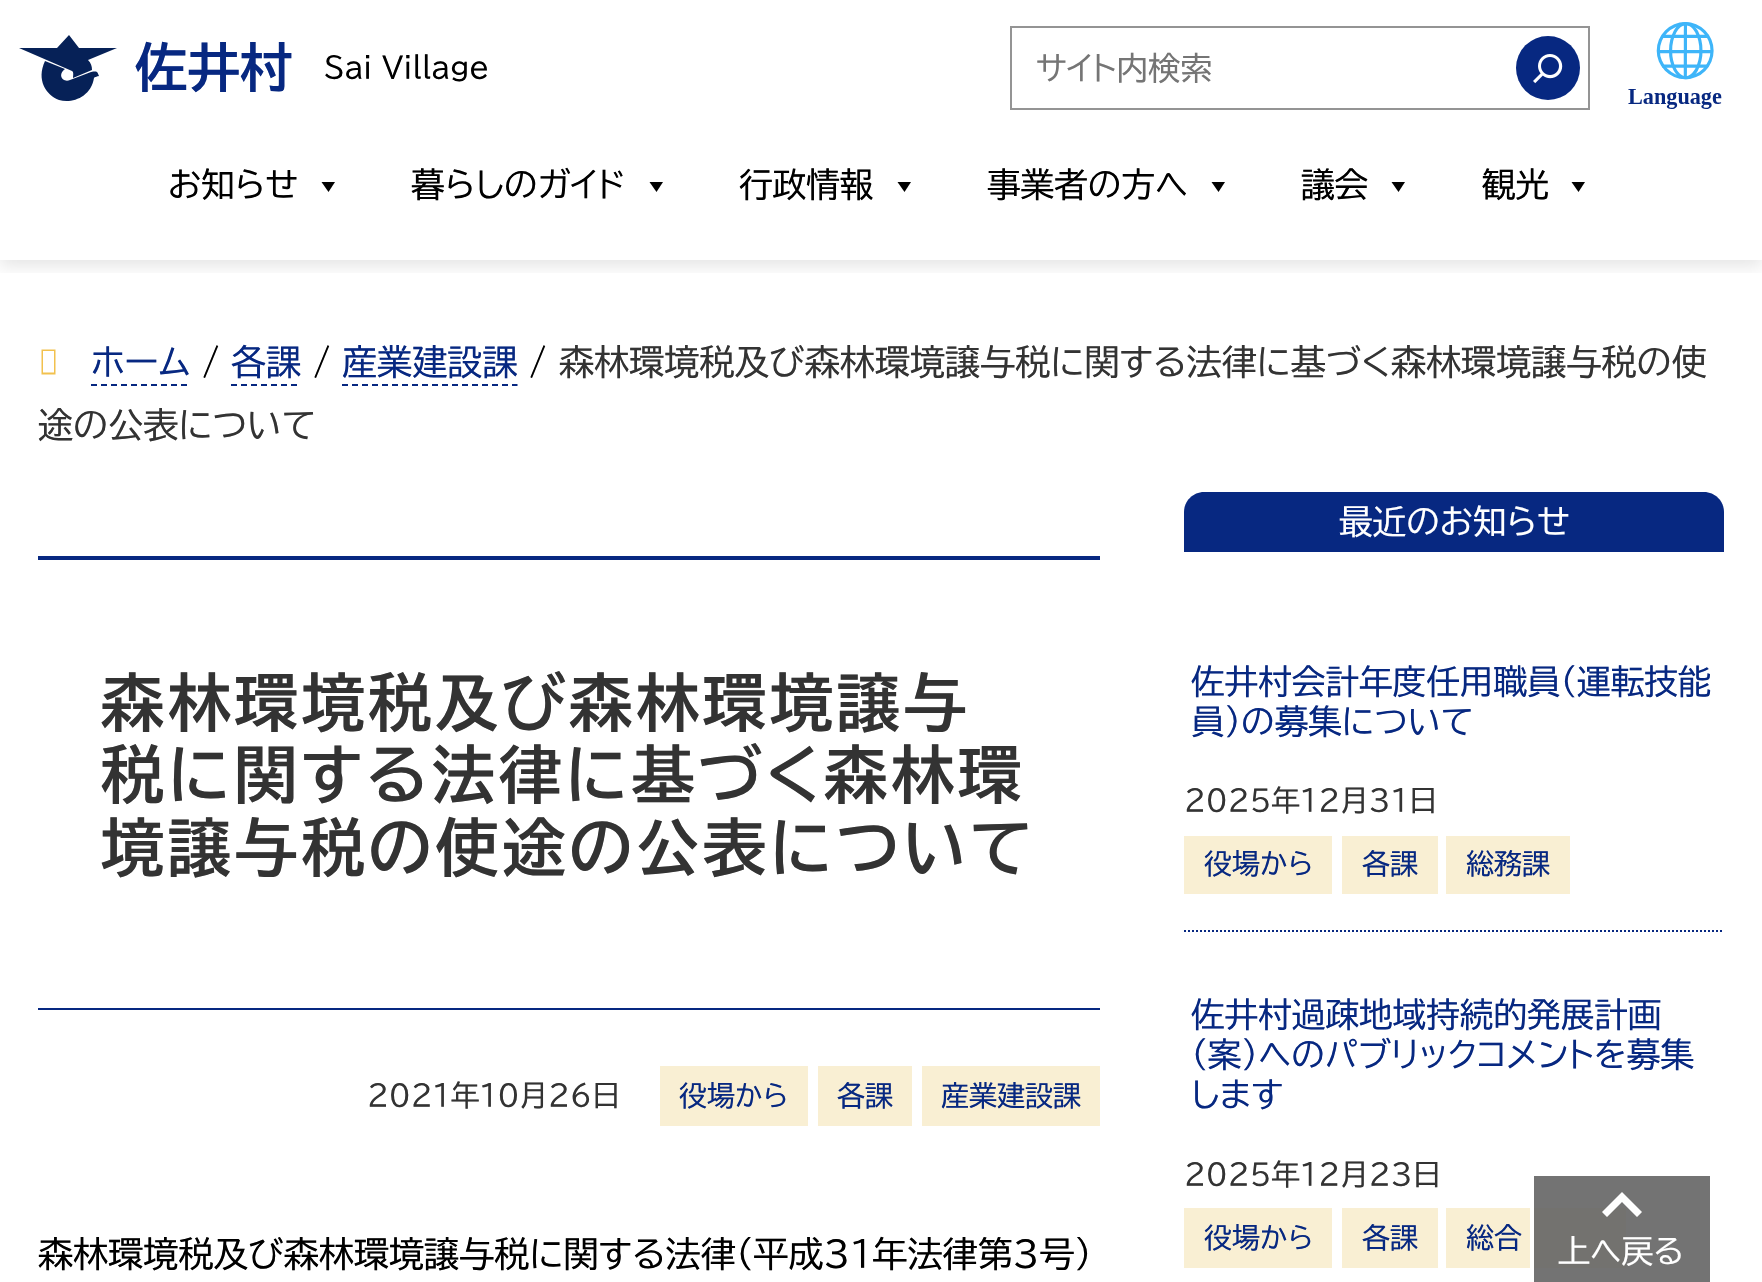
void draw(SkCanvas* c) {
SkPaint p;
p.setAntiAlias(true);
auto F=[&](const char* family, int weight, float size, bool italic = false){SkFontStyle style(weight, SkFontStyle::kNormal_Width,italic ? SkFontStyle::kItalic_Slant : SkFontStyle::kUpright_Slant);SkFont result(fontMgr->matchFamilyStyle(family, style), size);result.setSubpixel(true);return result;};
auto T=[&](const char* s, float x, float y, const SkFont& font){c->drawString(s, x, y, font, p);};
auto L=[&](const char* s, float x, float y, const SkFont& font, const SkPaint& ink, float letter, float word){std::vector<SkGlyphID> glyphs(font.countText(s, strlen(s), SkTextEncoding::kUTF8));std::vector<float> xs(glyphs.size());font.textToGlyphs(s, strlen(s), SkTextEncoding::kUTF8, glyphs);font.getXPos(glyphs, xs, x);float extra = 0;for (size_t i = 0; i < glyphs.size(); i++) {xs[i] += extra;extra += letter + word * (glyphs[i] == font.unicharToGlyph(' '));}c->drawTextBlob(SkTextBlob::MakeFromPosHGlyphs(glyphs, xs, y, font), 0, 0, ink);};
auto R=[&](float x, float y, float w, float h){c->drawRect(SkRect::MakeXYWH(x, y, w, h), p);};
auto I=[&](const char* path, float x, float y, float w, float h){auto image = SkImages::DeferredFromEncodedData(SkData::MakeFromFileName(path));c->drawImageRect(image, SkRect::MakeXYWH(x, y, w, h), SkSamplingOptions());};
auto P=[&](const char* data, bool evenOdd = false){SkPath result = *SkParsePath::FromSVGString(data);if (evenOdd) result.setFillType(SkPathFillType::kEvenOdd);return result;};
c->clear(0xffffffff);
c->save();
c->clipRect(SkRect::MakeXYWH(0,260,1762,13));
p.setColor(0x1a000000);
p.setMaskFilter(SkMaskFilter::MakeBlur(kNormal_SkBlurStyle, 8));
c->drawRect(SkRect::MakeXYWH(0,6,1762,260),p);
p.setMaskFilter(nullptr);
c->restore();
p.setColor(0xff062157);
c->drawPath(P("M57 48h-38l53 23c2 1 1 5 1 7l19-8c0-4-1-7-4-10l29-12h-38l-10-13z"),p);
c->drawPath(P("M45 61c-9 19 1 34 14 39c13 4 32-3 35-22c0-1 5-2 5-2c0 0-1-3-2-4c-2-1-6 0-6 0l-21 8c-7 3-13-5-5-11z"),p);
auto f1 = F("BIZ UDPGothic",700,52.5);
p.setColor(0xff072881);
T("佐井村",135,87,f1);
auto f2 = F("BIZ UDPGothic",400,28.75);
p.setColor(0xff000000);
T("Sai Village",324,78,f2);
p.setStroke(true);
p.setStrokeWidth(2);
p.setColor(0xff949494);
c->drawRect(SkRect::MakeXYWH(1011,27,578,82),p);
auto f3 = F("BIZ UDPGothic",400,32);
p.setStroke(false);
p.setColor(0xff757575);
T("サイト内検索",1036,80,f3);
p.setColor(0xff072881);
c->drawCircle(1548,68,32,p);
I("1.png",1533,54,30,30);
I("2.png",1628,22,94,87);
auto f4 = F("BIZ UDPGothic",400,33.6);
p.setColor(0xff000000);
T("お知らせ",168,197,f4);
c->drawPath(P("M335 182l-6.5 10l-7-10z"),p);
T("暮らしのガイド",411,197,f4);
c->drawPath(P("M663 182l-6.5 10l-7-10z"),p);
T("行政情報",739,197,f4);
c->drawPath(P("M911 182l-6.5 10l-7-10z"),p);
T("事業者の方へ",987,197,f4);
c->drawPath(P("M1225 182l-6.5 10l-7-10z"),p);
T("議会",1301,197,f4);
c->drawPath(P("M1405 182l-6.5 10l-7-10z"),p);
T("観光",1482,197,f4);
c->drawPath(P("M1585 182l-6.5 10l-7-10z"),p);
p.setColor(0xfff2c14e);
c->drawPath(P("M41.5 374.5v-25h14v25zm1.5-2h11v-21.5h-11z"),p);
auto f5 = F("BIZ UDPGothic",400,35.1);
p.setColor(0xff072881);
T("ホーム",91,375,f5);
p.setStroke(true);
p.setPathEffect(SkDashPathEffect::Make({{6,4}}, 0));
c->drawPath(P("M91 385h99"),p);
p.setPathEffect(nullptr);
p.setStroke(false);
p.setColor(0xff000000);
T("/",202,375,f5);
p.setColor(0xff072881);
T("各課",231,375,f5);
p.setStroke(true);
p.setPathEffect(SkDashPathEffect::Make({{6,4}}, 0));
c->drawPath(P("M231 385h70"),p);
p.setPathEffect(nullptr);
p.setStroke(false);
p.setColor(0xff000000);
T("/",313,375,f5);
p.setColor(0xff072881);
T("産業建設課",342,375,f5);
p.setStroke(true);
p.setPathEffect(SkDashPathEffect::Make({{6,4}}, 0));
c->drawPath(P("M342 385h175.5"),p);
p.setPathEffect(nullptr);
p.setStroke(false);
p.setColor(0xff000000);
T("/",529,375,f5);
p.setColor(0xff333333);
T("森林環境税及び森林環境譲与税に関する法律に基づく森林環境譲与税の使",559,375,f5);
T("途の公表について",38,438,f5);
p.setColor(0xff072881);
R(38,556,1062,4);
R(38,1008,1062,2);
auto f6 = F("BIZ UDPGothic",700,62.9);
p.setColor(0xff333333);
L("森林環境税及び森林環境譲与",101,726,f6,p,4,0);
L("税に関する法律に基づく森林環",101,798,f6,p,4,0);
L("境譲与税の使途の公表について",101,871,f6,p,4,0);
T("2021年10月26日",367,1106,f2);
p.setColor(0xfff9efd3);
R(660,1066,148,60);
auto f7 = F("BIZ UDPGothic",400,28);
p.setColor(0xff072881);
T("役場から",679,1106,f7);
p.setColor(0xfff9efd3);
R(818,1066,94,60);
p.setColor(0xff072881);
T("各課",837,1106,f7);
p.setColor(0xfff9efd3);
R(922,1066,178,60);
p.setColor(0xff072881);
T("産業建設課",941,1106,f7);
p.setColor(0xff000000);
T("森林環境税及び森林環境譲与税に関する法律（平成３１年法律第３号）",38,1267,f5);
p.setColor(0xff072881);
c->drawPath(P("M1204 492h500c11 0 20 9 20 20v40h-540v-40c0-11 9-20 20-20z"),p);
p.setColor(0xffffffff);
T("最近のお知らせ",1339,534,f4);
p.setStroke(true);
p.setColor(0xff072881);
p.setPathEffect(SkDashPathEffect::Make({{2,2}}, 0));
c->drawPath(P("M1184 931h540"),p);
p.setPathEffect(nullptr);
p.setStroke(false);
T("佐井村会計年度任用職員(運転技能",1191,694,f4);
T("員)の募集について",1191,734,f4);
p.setColor(0xff333333);
T("2025年12月31日",1184,811,f2);
p.setColor(0xfff9efd3);
R(1184,836,148,58);
p.setColor(0xff072881);
T("役場から",1204,874,f7);
p.setColor(0xfff9efd3);
R(1342,836,96,58);
p.setColor(0xff072881);
T("各課",1362,874,f7);
p.setColor(0xfff9efd3);
R(1446,836,124,58);
p.setColor(0xff072881);
T("総務課",1466,874,f7);
T("佐井村過疎地域持続的発展計画",1191,1027,f4);
T("（案）へのパブリックコメントを募集",1191,1067,f4);
T("します",1191,1107,f4);
p.setColor(0xff333333);
T("2025年12月23日",1184,1185,f2);
p.setColor(0xfff9efd3);
R(1184,1208,148,60);
p.setColor(0xff072881);
T("役場から",1204,1248,f7);
p.setColor(0xfff9efd3);
R(1342,1208,96,60);
p.setColor(0xff072881);
T("各課",1362,1248,f7);
p.setColor(0xfff9efd3);
R(1446,1208,180,60);
p.setColor(0xff072881);
T("総合",1466,1248,f7);
p.setStroke(true);
p.setStrokeWidth(4);
p.setColor(0xccffffff);
c->drawRect(SkRect::MakeXYWH(1532,1174,180,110),p);
c->drawRect(SkRect::MakeXYWH(1532,1174,180,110),p);
p.setStroke(false);
p.setColor(0xe6646464);
R(1534,1176,176,106);
p.setColor(0xffffffff);
c->drawPath(P("M1637 1217l-15-15l-15 15l-5-5l20-20v1v-1l20 20z"),p);
T("上へ戻る",1558,1263,f3);
}
